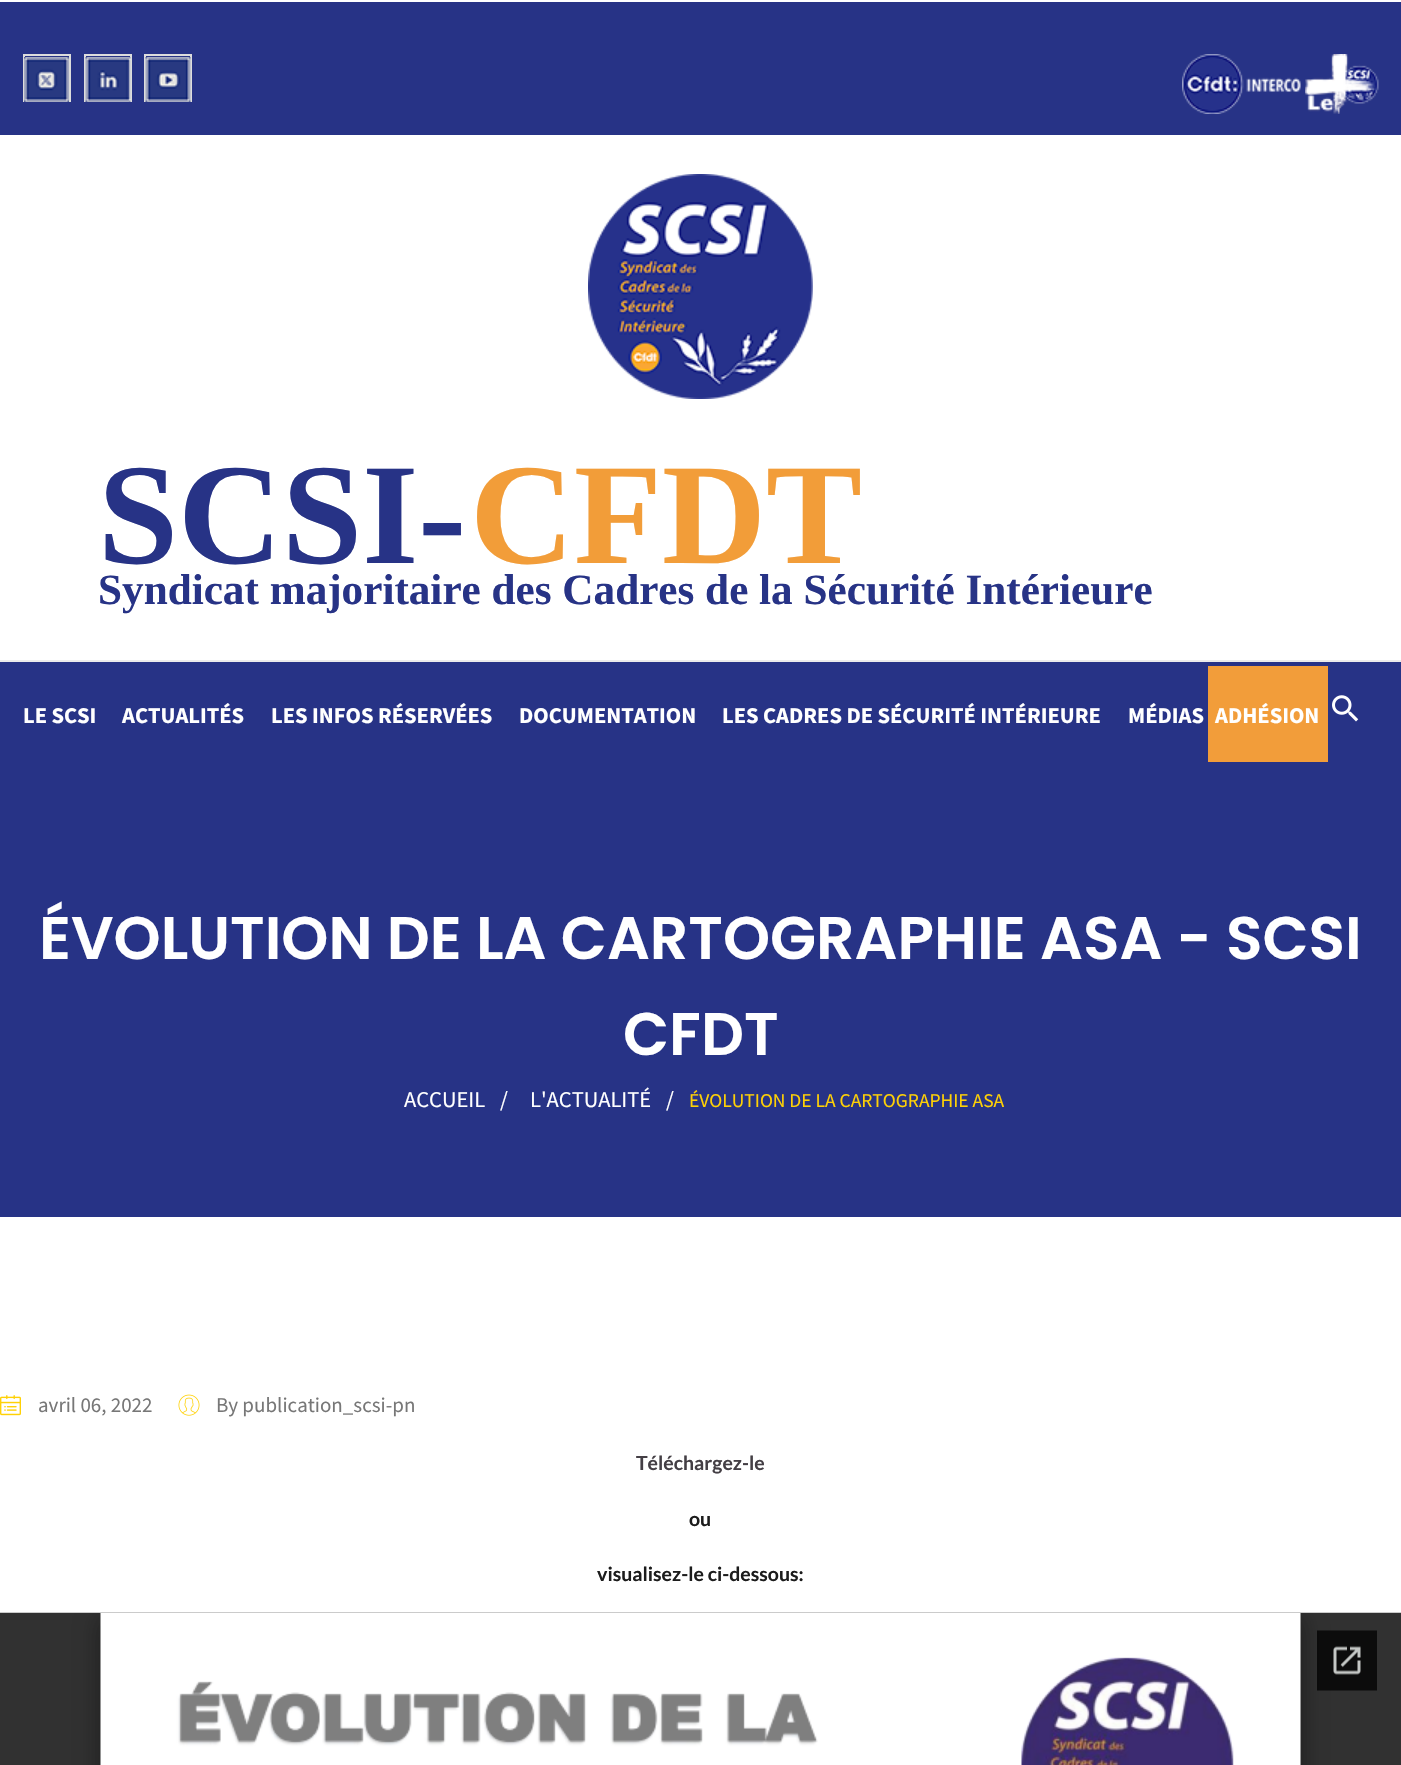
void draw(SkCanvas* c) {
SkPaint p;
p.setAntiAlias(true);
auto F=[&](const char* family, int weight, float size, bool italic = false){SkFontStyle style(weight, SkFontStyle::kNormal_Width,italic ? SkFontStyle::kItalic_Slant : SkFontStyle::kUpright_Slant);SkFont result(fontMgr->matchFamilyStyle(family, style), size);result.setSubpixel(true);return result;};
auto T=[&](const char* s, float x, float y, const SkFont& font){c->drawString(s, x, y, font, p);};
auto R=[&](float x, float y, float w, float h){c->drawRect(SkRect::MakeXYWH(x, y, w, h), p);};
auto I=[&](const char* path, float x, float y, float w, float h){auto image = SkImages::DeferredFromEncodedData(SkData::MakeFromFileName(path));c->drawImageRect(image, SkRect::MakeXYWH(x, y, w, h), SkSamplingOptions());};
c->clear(0xffffffff);
p.setColor(0xff273386);
R(0,2,1401,133);
p.setStroke(true);
p.setStrokeWidth(2);
p.setColor(0xffdddddd);
c->drawRect(SkRect::MakeXYWH(24,55,46,46),p);
I("1.png",24,57,45,45);
c->drawRect(SkRect::MakeXYWH(85,55,46,46),p);
I("2.png",85,57,46,45);
c->drawRect(SkRect::MakeXYWH(145,55,46,46),p);
I("3.png",145,57,46,45);
I("4.png",1182,54,119,60);
I("5.png",1305,54,74,60);
I("6.png",588,174,225,225);
auto f1 = F("Liberation Serif",700,144);
p.setStroke(false);
p.setColor(0xff273386);
T("SCSI-",98,563,f1);
p.setColor(0xfff29d39);
T("CFDT",470,563,f1);
auto f2 = F("Liberation Serif",700,43.2);
p.setColor(0xff273386);
T("Syndicat majoritaire des Cadres de la Sécurité Intérieure",98,604,f2);
p.setColor(0xffebebeb);
R(0,660,1401,2);
p.setColor(0xff273386);
R(0,662,1401,555);
auto f3 = F("Source Sans Pro",700,22.5);
p.setColor(0xffffffff);
T("LE SCSI",23,723,f3);
T("ACTUALITÉS",122,723,f3);
T("LES INFOS RÉSERVÉES",271,723,f3);
T("DOCUMENTATION",519,723,f3);
T("LES CADRES DE SÉCURITÉ INTÉRIEURE",722,723,f3);
T("MÉDIAS",1128,723,f3);
p.setColor(0xfff29d3a);
R(1208,666,120,96);
p.setColor(0xffffffff);
T("ADHÉSION",1215,723,f3);
I("7.png",1332,695,27,27);
auto f4 = F("Poppins",600,60);
T("ÉVOLUTION DE LA CARTOGRAPHIE ASA - SCSI",39,959,f4);
T("CFDT",623,1055,f4);
auto f5 = F("Source Sans Pro",400,22.5);
T("ACCUEIL",404,1107,f5);
T("/",500,1107,f5);
T("L'ACTUALITÉ",530,1107,f5);
T("/",666,1107,f5);
auto f6 = F("Source Sans Pro",400,19.5);
p.setColor(0xffffd105);
T("ÉVOLUTION DE LA CARTOGRAPHIE ASA",689,1107,f6);
I("8.png",0,1395,21,21);
auto f7 = F("Source Sans Pro",400,21);
p.setColor(0xff777777);
T("avril 06, 2022",38,1412,f7);
I("9.png",178,1394,22,22);
T("By publication_scsi-pn",216,1412,f7);
auto f8 = F("Lato",700,19.5);
p.setColor(0xff443f45);
T("Téléchargez-le",636,1470,f8);
p.setColor(0xff1c1c1c);
T("ou",689,1526,f8);
T("visualisez-le ci-dessous:",597,1581,f8);
I("10.png",0,1612,1401,153);
}
